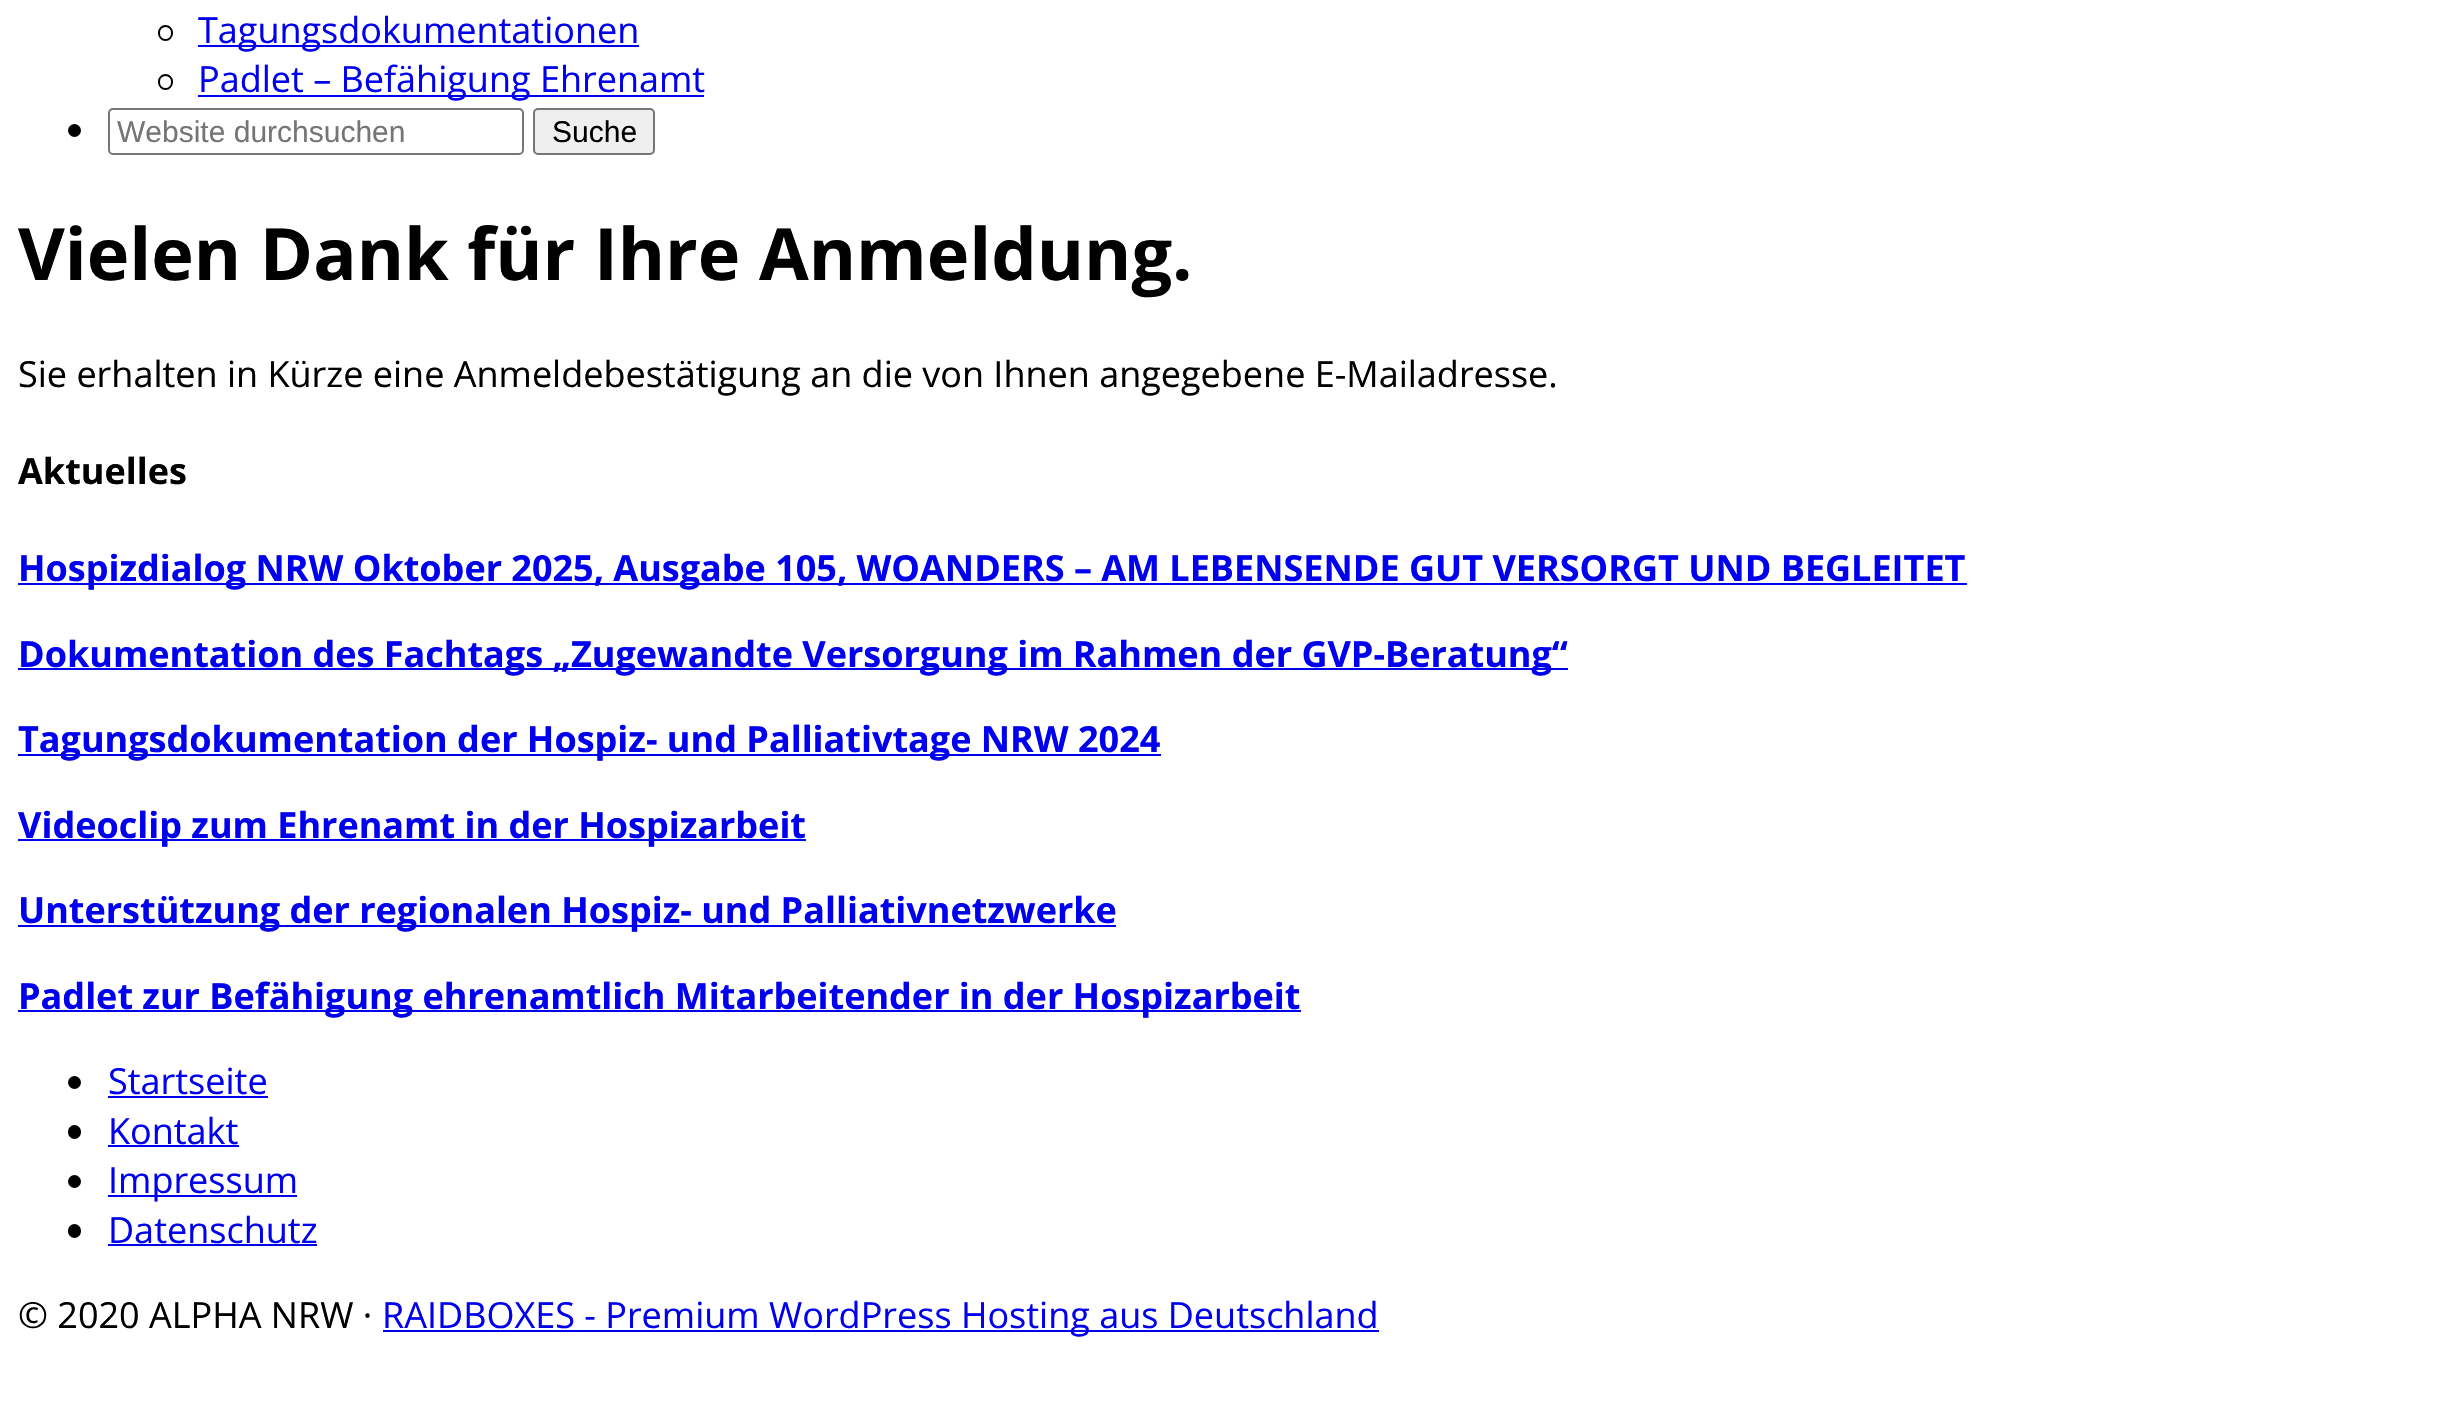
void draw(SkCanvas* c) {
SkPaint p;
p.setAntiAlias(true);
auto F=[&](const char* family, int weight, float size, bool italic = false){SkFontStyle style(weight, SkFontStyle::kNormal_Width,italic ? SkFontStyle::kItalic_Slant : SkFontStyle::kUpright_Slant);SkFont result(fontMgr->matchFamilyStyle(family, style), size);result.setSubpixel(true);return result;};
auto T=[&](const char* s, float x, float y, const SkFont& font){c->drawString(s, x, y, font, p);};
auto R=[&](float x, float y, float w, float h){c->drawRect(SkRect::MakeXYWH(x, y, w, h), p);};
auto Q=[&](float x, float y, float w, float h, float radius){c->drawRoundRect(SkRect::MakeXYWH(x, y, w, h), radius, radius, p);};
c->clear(0xffffffff);
p.setStroke(true);
p.setStrokeWidth(2);
p.setColor(0xff000000);
c->drawRoundRect(SkRect::MakeXYWH(159,26,13,14),6.5,6.5,p);
p.setStroke(false);
p.setColor(0xff0000ee);
R(198,45,441,2);
auto f1 = F("Open Sans",400,36);
T("Tagungsdokumentationen",198,43,f1);
p.setStroke(true);
p.setColor(0xff000000);
c->drawRoundRect(SkRect::MakeXYWH(159,75,13,14),6.5,6.5,p);
p.setStroke(false);
p.setColor(0xff0000ee);
R(198,95,506,2);
T("Padlet – Befähigung Ehrenamt",198,92,f1);
p.setColor(0xff000000);
c->drawCircle(74.5,130.5,6.5,p);
p.setStroke(true);
p.setColor(0xff767676);
c->drawRoundRect(SkRect::MakeXYWH(109,109,414,45),4,4,p);
auto f2 = F("Liberation Sans",400,30);
p.setStroke(false);
p.setColor(0xff757575);
T("Website durchsuchen",117,142,f2);
p.setColor(0xffefefef);
c->drawRoundRect(SkRect::MakeXYWH(534,109,120,45),4,4,p);
p.setStroke(true);
p.setColor(0xff767676);
c->drawRoundRect(SkRect::MakeXYWH(534,109,120,45),4,4,p);
p.setStroke(false);
p.setColor(0xff000000);
T("Suche",552,142,f2);
auto f3 = F("Open Sans",700,72);
T("Vielen Dank für Ihre Anmeldung.",18,280,f3);
T("Sie erhalten in Kürze eine Anmeldebestätigung an die von Ihnen angegebene E-Mailadresse.",18,387,f1);
auto f4 = F("Open Sans",700,36);
T("Aktuelles",18,484,f4);
p.setColor(0xff0000ee);
R(18,583,1949,2);
T("Hospizdialog NRW Oktober 2025, Ausgabe 105, WOANDERS – AM LEBENSENDE GUT VERSORGT UND BEGLEITET",18,581,f4);
R(18,668,1550,2);
T("Dokumentation des Fachtags „Zugewandte Versorgung im Rahmen der GVP-Beratung“",18,667,f4);
R(18,754,1143,2);
T("Tagungsdokumentation der Hospiz- und Palliativtage NRW 2024",18,752,f4);
R(18,839,788,2);
T("Videoclip zum Ehrenamt in der Hospizarbeit",18,838,f4);
R(18,925,1098,2);
T("Unterstützung der regionalen Hospiz- und Palliativnetzwerke",18,923,f4);
R(18,1010,1283,2);
T("Padlet zur Befähigung ehrenamtlich Mitarbeitender in der Hospizarbeit",18,1009,f4);
p.setColor(0xff000000);
c->drawCircle(74.5,1082.5,6.5,p);
p.setColor(0xff0000ee);
T("Startseite",108,1094,f1);
R(108,1096,160,2);
p.setColor(0xff000000);
Q(68,1125,13,14,6.5);
p.setColor(0xff0000ee);
T("Kontakt",108,1144,f1);
R(108,1145,131,2);
p.setColor(0xff000000);
c->drawCircle(74.5,1181.5,6.5,p);
p.setColor(0xff0000ee);
R(108,1195,189,2);
T("Impressum",108,1193,f1);
p.setColor(0xff000000);
Q(68,1224,13,14,6.5);
p.setColor(0xff0000ee);
T("Datenschutz",108,1243,f1);
R(108,1244,209,2);
p.setColor(0xff000000);
T("© 2020 ALPHA NRW ·",18,1328,f1);
p.setColor(0xff0000ee);
R(383,1330,996,2);
T("RAIDBOXES - Premium WordPress Hosting aus Deutschland",382,1328,f1);
}
